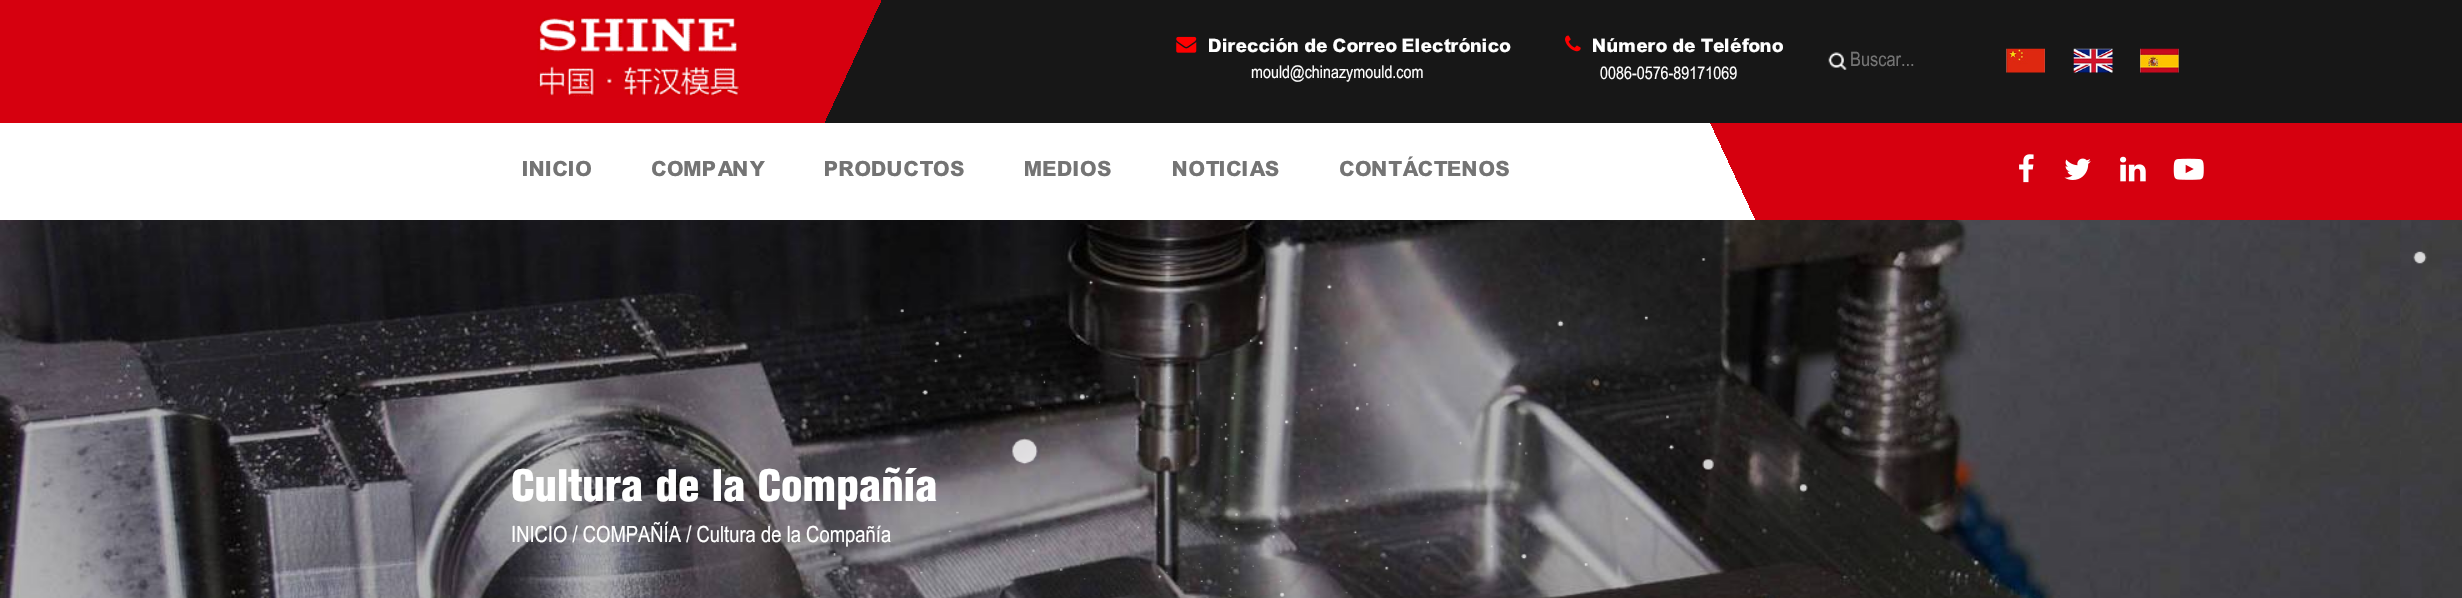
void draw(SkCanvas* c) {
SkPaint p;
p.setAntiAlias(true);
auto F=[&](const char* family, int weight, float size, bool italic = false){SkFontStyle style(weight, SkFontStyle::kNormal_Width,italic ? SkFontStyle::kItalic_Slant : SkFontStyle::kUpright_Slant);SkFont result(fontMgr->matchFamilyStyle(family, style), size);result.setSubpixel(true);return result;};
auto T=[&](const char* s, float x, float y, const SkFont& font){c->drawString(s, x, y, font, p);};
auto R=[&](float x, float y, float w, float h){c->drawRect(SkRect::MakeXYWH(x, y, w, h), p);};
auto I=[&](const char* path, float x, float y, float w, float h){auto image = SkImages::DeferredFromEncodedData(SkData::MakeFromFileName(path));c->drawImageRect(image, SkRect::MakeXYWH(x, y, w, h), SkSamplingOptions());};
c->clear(0xffffffff);
{
const SkColor colors[] = {0xff171717,0xff171717,0xffd6000f,0xffd6000f};
const float stops[] = {0,.65,.65,1};
const SkPoint ends[] = {{2266,544}, {196,-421}};
p.setShader(SkGradientShader::MakeLinear(ends, colors, stops, 4, SkTileMode::kClamp));
p.setAlpha(255);
}
R(0,0,2462,123);
I("1.png",537,16,203,82);
I("2.png",1176,36,21,17);
auto f1 = F("Arial",700,20);
p.setShader(nullptr);
p.setColor(0xffffffff);
T("Dirección de Correo Electrónico",1209,52,f1);
auto f2 = F("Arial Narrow",500,17.5);
T("mould@chinazymould.com",1251,78,f2);
I("3.png",1565,35,16,17);
T("Número de Teléfono",1593,52,f1);
T("0086-0576-89171069",1600,79,f2);
I("4.png",1828,52,19,18);
auto f3 = F("Arial Narrow",500,20);
p.setColor(0xff747474);
T("Buscar...",1850,66,f3);
I("5.png",2006,48,39,25);
I("6.png",2073,48,40,25);
I("7.png",2140,48,39,25);
{
const SkColor colors[] = {0xffffffff,0xffffffff,0xffd6000f,0xffd6000f};
const float stops[] = {0,.7,.7,1};
const SkPoint ends[] = {{201,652}, {2261,-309}};
p.setShader(SkGradientShader::MakeLinear(ends, colors, stops, 4, SkTileMode::kClamp));
p.setAlpha(255);
}
R(1710,123,752,97);
auto f4 = F("Arial",700,22.5);
p.setShader(nullptr);
p.setColor(0xff747474);
T("INICIO",523,176,f4);
T("COMPANY",652,176,f4);
T("PRODUCTOS",825,176,f4);
T("MEDIOS",1025,176,f4);
T("NOTICIAS",1173,176,f4);
T("CONTÁCTENOS",1340,176,f4);
I("8.png",2019,154,15,29);
I("9.png",2064,158,27,22);
I("10.png",2120,156,26,26);
I("11.png",2173,158,31,22);
I("12.png",2400,220,62,378);
I("13.png",0,220,2400,378);
I("14.png",832,251,1595,347);
auto f5 = F("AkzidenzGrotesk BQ",800,45);
p.setColor(0xffffffff);
T("Cultura de la Compañía",511,501,f5);
auto f6 = F("Arial Narrow",500,22.5);
T("INICIO / COMPAÑÍA / Cultura de la Compañía",511,542,f6);
}
